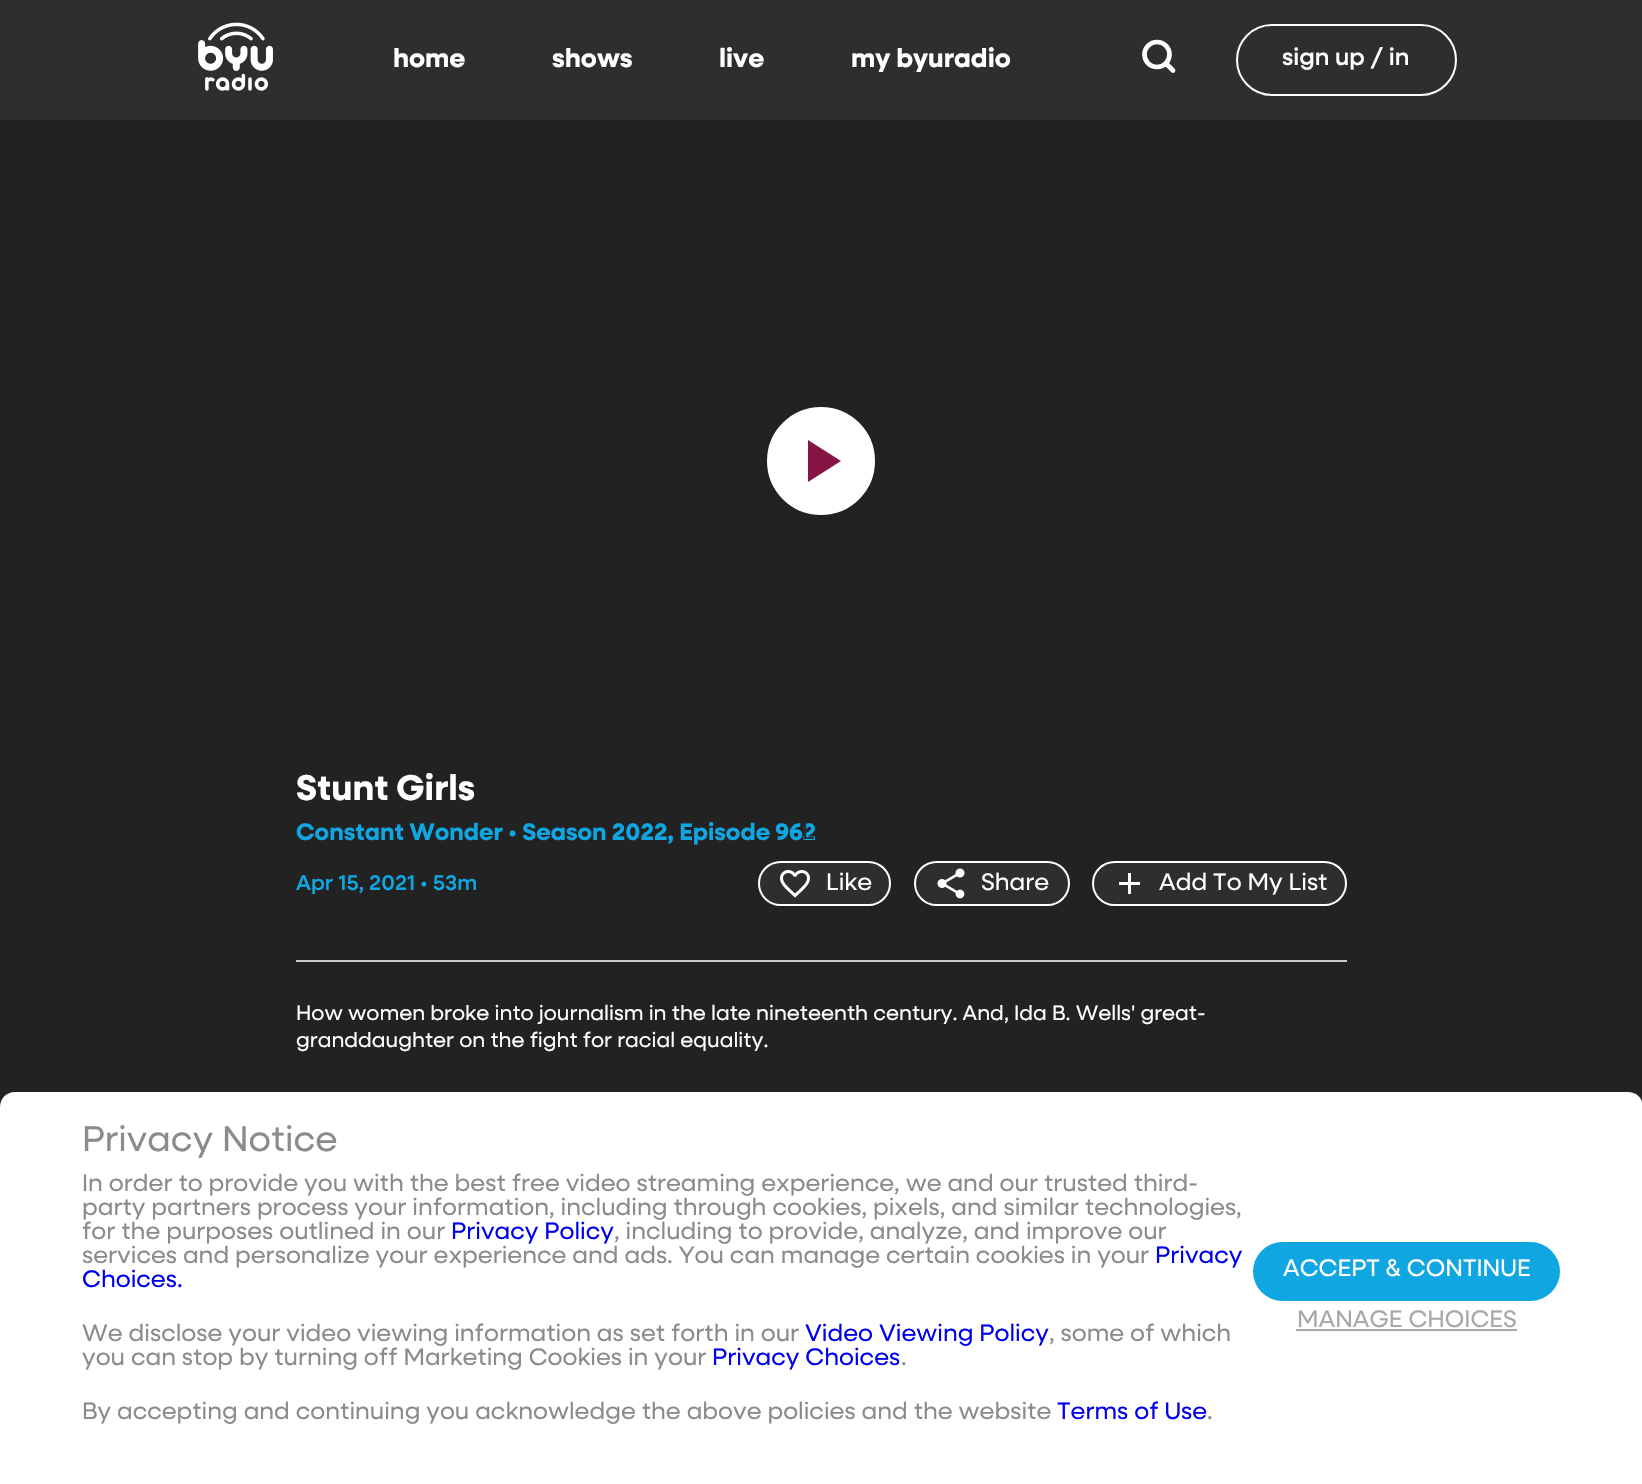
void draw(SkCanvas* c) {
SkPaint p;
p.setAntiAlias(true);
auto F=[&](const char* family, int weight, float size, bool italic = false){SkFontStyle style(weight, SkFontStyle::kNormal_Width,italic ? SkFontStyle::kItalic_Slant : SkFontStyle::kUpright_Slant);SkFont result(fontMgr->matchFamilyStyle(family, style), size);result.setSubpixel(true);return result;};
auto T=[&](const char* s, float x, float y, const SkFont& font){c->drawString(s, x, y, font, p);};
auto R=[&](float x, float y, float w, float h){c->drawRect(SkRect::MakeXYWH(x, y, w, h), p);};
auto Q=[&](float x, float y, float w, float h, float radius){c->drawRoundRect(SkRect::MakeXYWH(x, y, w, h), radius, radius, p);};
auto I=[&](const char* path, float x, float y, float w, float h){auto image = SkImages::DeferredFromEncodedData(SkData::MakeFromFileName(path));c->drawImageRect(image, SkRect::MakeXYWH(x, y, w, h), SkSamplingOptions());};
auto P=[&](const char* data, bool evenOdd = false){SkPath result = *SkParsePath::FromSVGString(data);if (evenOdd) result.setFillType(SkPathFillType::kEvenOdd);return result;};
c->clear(0xff222222);
p.setColor(0xff2e2e2e);
R(0,0,1642,120);
I("1.png",198,22,75,69);
auto f1 = F("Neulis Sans",700,26.5);
p.setColor(0xffffffff);
T("home",393,67,f1);
T("shows",552,67,f1);
T("live",719,67,f1);
T("my byuradio",851,67,f1);
p.setStroke(true);
p.setStrokeWidth(4.7);
c->drawCircle(1157,54.5,12.5,p);
p.setStrokeCap(SkPaint::kRound_Cap);
p.setStrokeJoin(SkPaint::kRound_Join);
c->drawPath(P("M1173 70.5l-7-7"),p);
p.setStrokeWidth(2);
p.setStrokeCap(SkPaint::kButt_Cap);
p.setStrokeJoin(SkPaint::kMiter_Join);
c->drawRoundRect(SkRect::MakeXYWH(1237,25,219,70),35,35,p);
auto f2 = F("Neulis Sans",500,24);
p.setStroke(false);
T("sign up / in",1282,65,f2);
c->drawCircle(821,461,52.5,p);
p.setStroke(true);
p.setStrokeWidth(3);
c->drawCircle(821,461,52.5,p);
p.setStroke(false);
p.setColor(0xff861543);
c->drawPath(P("M808 440v42l33-21z"),p);
auto f3 = F("Neulis Sans",700,36);
p.setColor(0xffffffff);
T("Stunt Girls",296,800,f3);
auto f4 = F("Neulis Sans",700,24);
p.setColor(0xff0fa6e2);
T("Constant Wonder • Season 2022, Episode 962",296,840,f4);
c->save();
c->clipRect(SkRect::MakeXYWH(296,873,181,21));
auto f5 = F("Neulis Sans",500,21.5);
T("Apr 15, 2021 • 53m",296,890,f5);
c->restore();
p.setColor(0xff2e2e2e);
c->drawRoundRect(SkRect::MakeXYWH(759,862,131,43),21.5,21.5,p);
p.setStroke(true);
p.setStrokeWidth(2);
p.setColor(0xffffffff);
c->drawRoundRect(SkRect::MakeXYWH(759,862,131,43),21.5,21.5,p);
auto f6 = F("Neulis Sans",400,24);
p.setStroke(false);
p.setColor(0xff203138);
T("L",802,839,f6);
I("2.png",780,870,30,28);
p.setColor(0xffffffff);
T("Like",826,890,f6);
p.setColor(0xff2e2e2e);
c->drawRoundRect(SkRect::MakeXYWH(915,862,154,43),21.5,21.5,p);
p.setStroke(true);
p.setColor(0xffffffff);
c->drawRoundRect(SkRect::MakeXYWH(915,862,154,43),21.5,21.5,p);
I("3.png",937,868,28,31);
p.setStroke(false);
T("Share",981,890,f6);
p.setColor(0xff2e2e2e);
c->drawRoundRect(SkRect::MakeXYWH(1093,862,253,43),21.5,21.5,p);
p.setStroke(true);
p.setColor(0xffffffff);
c->drawRoundRect(SkRect::MakeXYWH(1093,862,253,43),21.5,21.5,p);
I("4.png",1119,873,21,21);
p.setStroke(false);
T("Add To My List",1159,890,f6);
p.setColor(0xffcccccc);
R(296,960,1051,2);
auto f7 = F("Neulis Sans",400,21);
p.setColor(0xffffffff);
T("How women broke into journalism in the late nineteenth century. And, Ida B. Wells' great-",296,1020,f7);
T("granddaughter on the fight for racial equality.",296,1047,f7);
c->drawPath(P("M15 1092h1613c8.5 0 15 6.5 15 15v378h-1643v-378c0-8.5 6.5-15 15-15z"),p);
auto f8 = F("Neulis Sans",400,36);
p.setColor(0xff898b8d);
T("Privacy Notice",82,1151,f8);
T("In order to provide you with the best free video streaming experience, we and our trusted third-",82,1191,f6);
T("party partners process your information, including through cookies, pixels, and similar technologies,",82,1215,f6);
T("for the purposes outlined in our",82,1239,f6);
p.setColor(0xff0000ee);
T("Privacy Policy",451,1239,f6);
p.setColor(0xff898b8d);
T(", including to provide, analyze, and improve our",614,1239,f6);
T("services and personalize your experience and ads. You can manage certain cookies in your",82,1263,f6);
p.setColor(0xff0000ee);
T("Privacy",1155,1263,f6);
T("Choices.",82,1287,f6);
p.setColor(0xff898b8d);
T("We disclose your video viewing information as set forth in our",82,1341,f6);
p.setColor(0xff0000ee);
T("Video Viewing Policy",805,1341,f6);
p.setColor(0xff898b8d);
T(", some of which",1049,1341,f6);
T("you can stop by turning off Marketing Cookies in your",82,1365,f6);
p.setColor(0xff0000ee);
T("Privacy Choices",712,1365,f6);
p.setColor(0xff898b8d);
T(".",901,1365,f6);
T("By accepting and continuing you acknowledge the above policies and the website",82,1419,f6);
p.setColor(0xff0000ee);
T("Terms of Use",1057,1419,f6);
p.setColor(0xff898b8d);
T(".",1207,1419,f6);
p.setColor(0xff0fa6e2);
Q(1253,1242,307,59,29.5);
p.setColor(0xffffffff);
T("ACCEPT & CONTINUE",1283,1276,f6);
p.setColor(0xffa5a8ac);
T("MANAGE CHOICES",1297,1327,f6);
R(1296,1329,221,2);
}
